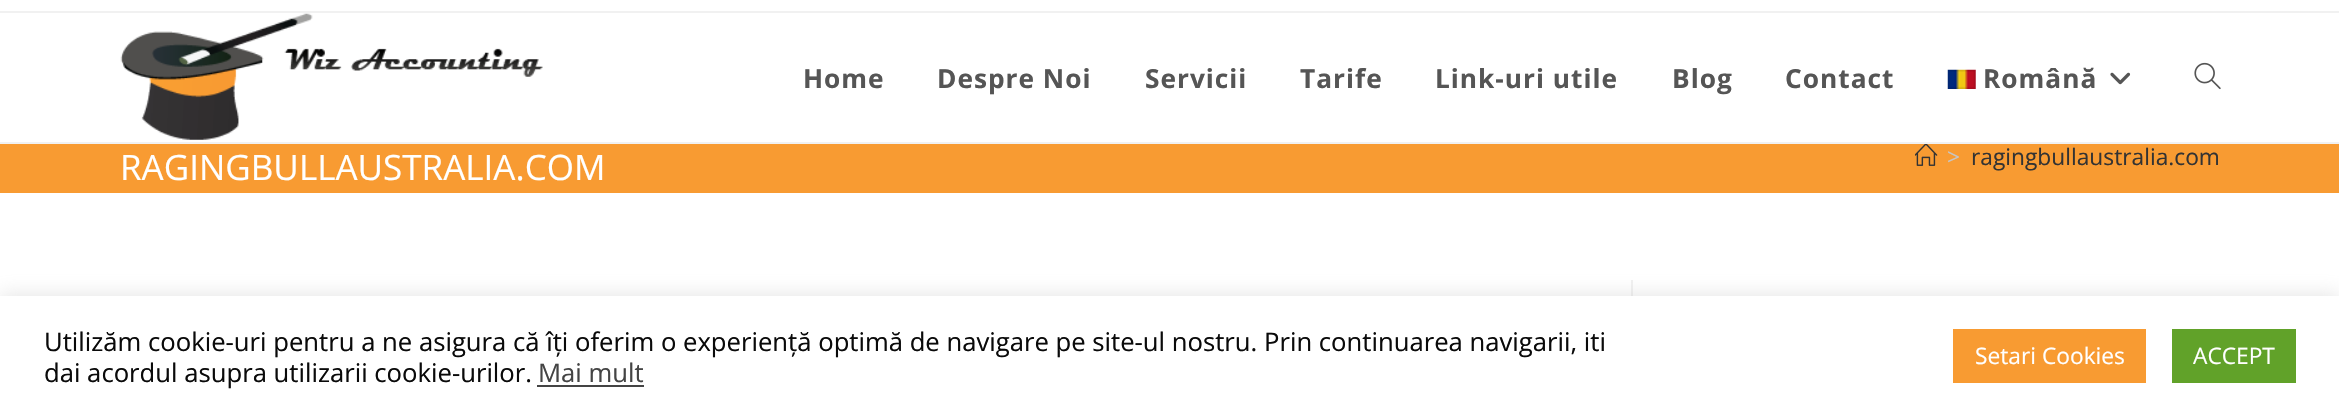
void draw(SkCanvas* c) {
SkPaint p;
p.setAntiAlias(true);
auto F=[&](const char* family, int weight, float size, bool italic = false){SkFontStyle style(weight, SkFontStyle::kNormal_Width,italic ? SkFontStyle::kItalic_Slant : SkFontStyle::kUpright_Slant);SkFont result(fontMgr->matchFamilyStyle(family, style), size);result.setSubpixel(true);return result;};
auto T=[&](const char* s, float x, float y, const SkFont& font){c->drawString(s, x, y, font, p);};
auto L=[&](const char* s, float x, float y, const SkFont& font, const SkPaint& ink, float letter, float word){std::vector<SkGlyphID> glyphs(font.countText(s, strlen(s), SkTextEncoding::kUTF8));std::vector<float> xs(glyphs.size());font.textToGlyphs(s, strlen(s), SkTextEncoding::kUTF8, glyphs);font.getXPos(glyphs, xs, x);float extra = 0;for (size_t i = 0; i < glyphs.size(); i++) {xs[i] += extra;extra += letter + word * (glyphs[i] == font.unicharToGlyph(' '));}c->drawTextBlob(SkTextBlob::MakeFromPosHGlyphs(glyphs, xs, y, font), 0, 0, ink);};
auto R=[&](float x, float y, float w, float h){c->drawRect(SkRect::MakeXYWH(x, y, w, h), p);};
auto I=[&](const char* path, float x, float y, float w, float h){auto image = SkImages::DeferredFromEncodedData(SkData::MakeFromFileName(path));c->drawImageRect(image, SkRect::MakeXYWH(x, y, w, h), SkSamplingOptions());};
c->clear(0xffffffff);
p.setColor(0xfff1f1f1);
R(0,11,2339,2);
R(0,142,2339,2);
I("1.png",120,13,423,127);
auto f1 = F("Open Sans",700,26.25);
p.setColor(0xff555555);
L("Home",803,88,f1,p,1,0);
L("Despre Noi",937,88,f1,p,1,0);
L("Servicii",1145,88,f1,p,1,0);
L("Tarife",1300,88,f1,p,1,0);
L("Link-uri utile",1435,88,f1,p,1,0);
L("Blog",1672,88,f1,p,1,0);
L("Contact",1785,88,f1,p,1,0);
I("2.png",1947,69,29,20);
L("Română",1983,88,f1,p,1,0);
I("3.png",2110,72,21,13);
I("4.png",2194,62,27,28);
p.setColor(0xfff89b32);
R(0,144,2339,49);
auto f2 = F("Open Sans",400,35);
p.setColor(0xffffffff);
T("RAGINGBULLAUSTRALIA.COM",120,180,f2);
I("5.png",1915,144,23,22);
auto f3 = F("Open Sans",400,22.75);
p.setColor(0xffc6c6c6);
T(">",1947,165,f3);
p.setColor(0xff333333);
T("ragingbullaustralia.com",1971,165,f3);
p.setColor(0xfff1f1f1);
R(1631,280,2,16);
p.setColor(0x4dacabab);
p.setMaskFilter(SkMaskFilter::MakeBlur(kNormal_SkBlurStyle, 9));
c->drawRect(SkRect::MakeXYWH(0,294,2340,121),p);
p.setMaskFilter(nullptr);
p.setColor(0xffffffff);
R(0,296,2339,120);
auto f4 = F("Open Sans",400,25.67);
p.setColor(0xff0a0a0a);
T("Utilizăm cookie-uri pentru a ne asigura că îți oferim o experiență optimă de navigare pe site-ul nostru. Prin continuarea navigarii, iti",44,351,f4);
T("dai acordul asupra utilizarii cookie-urilor.",44,382,f4);
p.setColor(0xff444444);
T("Mai mult",538,382,f4);
R(537,385,107,2);
p.setColor(0xfff89b32);
R(1953,329,193,54);
p.setColor(0xffffffff);
T("Setari Cookies",1975,364,f3);
p.setColor(0xff61a229);
R(2172,329,124,54);
p.setColor(0xffffffff);
T("ACCEPT",2193,364,f3);
}
